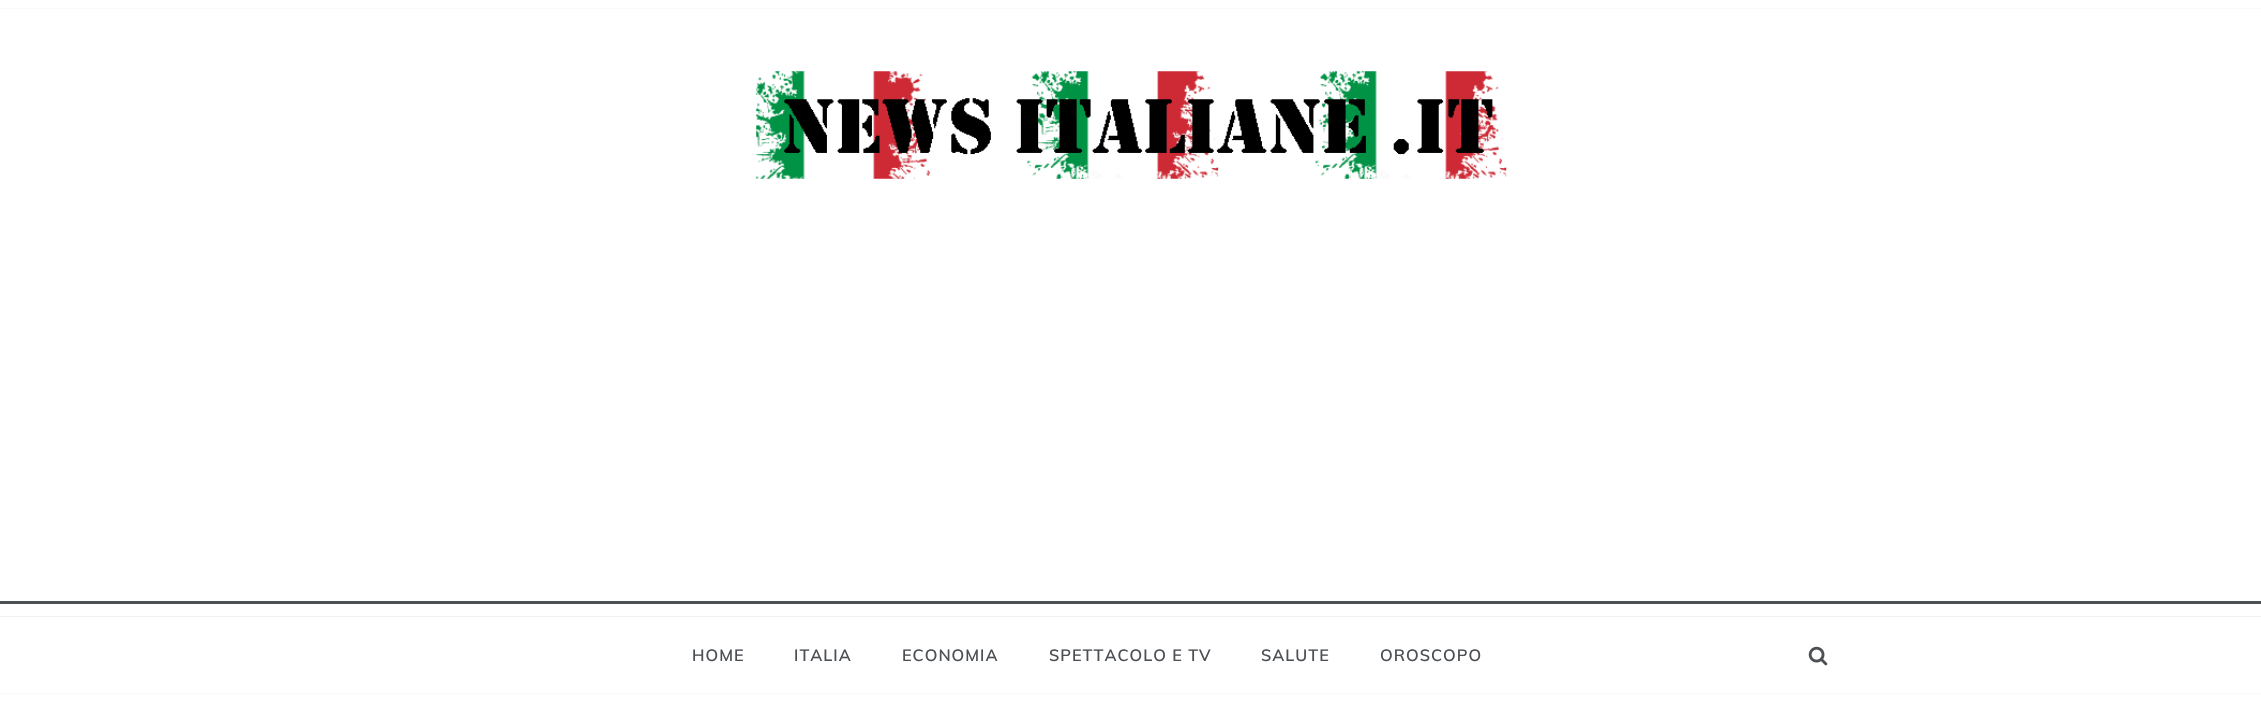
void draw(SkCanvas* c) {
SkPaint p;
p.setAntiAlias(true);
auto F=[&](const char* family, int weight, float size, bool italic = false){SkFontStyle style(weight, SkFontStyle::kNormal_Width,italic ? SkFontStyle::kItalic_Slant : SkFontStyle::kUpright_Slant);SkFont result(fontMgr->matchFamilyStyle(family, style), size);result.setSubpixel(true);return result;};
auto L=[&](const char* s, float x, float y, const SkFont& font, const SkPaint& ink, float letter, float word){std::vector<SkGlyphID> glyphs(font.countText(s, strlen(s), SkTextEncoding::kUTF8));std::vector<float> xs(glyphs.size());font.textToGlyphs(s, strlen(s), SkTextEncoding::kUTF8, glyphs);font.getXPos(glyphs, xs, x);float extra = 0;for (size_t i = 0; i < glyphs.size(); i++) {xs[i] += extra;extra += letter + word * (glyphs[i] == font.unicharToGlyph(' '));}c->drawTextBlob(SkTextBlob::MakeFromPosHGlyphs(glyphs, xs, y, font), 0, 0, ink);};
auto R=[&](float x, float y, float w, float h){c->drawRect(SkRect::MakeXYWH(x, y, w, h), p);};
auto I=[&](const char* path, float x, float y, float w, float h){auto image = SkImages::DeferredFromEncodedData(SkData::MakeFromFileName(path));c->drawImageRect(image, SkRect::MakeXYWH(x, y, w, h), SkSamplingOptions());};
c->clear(0xffffffff);
p.setColor(0xfffafafa);
R(0,8,2261,1);
R(0,693,2261,1);
p.setColor(0xfff2f2f2);
R(0,616,2261,1);
I("1.png",756,71,751,108);
p.setColor(0xff4c4f53);
R(0,601,2261,3);
auto f1 = F("Muli",600,16.25);
L("HOME",692,661,f1,p,1,0);
L("ITALIA",794,661,f1,p,1,0);
L("ECONOMIA",902,661,f1,p,1,0);
L("SPETTACOLO E TV",1049,661,f1,p,1,0);
L("SALUTE",1261,661,f1,p,1,0);
L("OROSCOPO",1380,661,f1,p,1,0);
I("2.png",1808,646,20,20);
}
